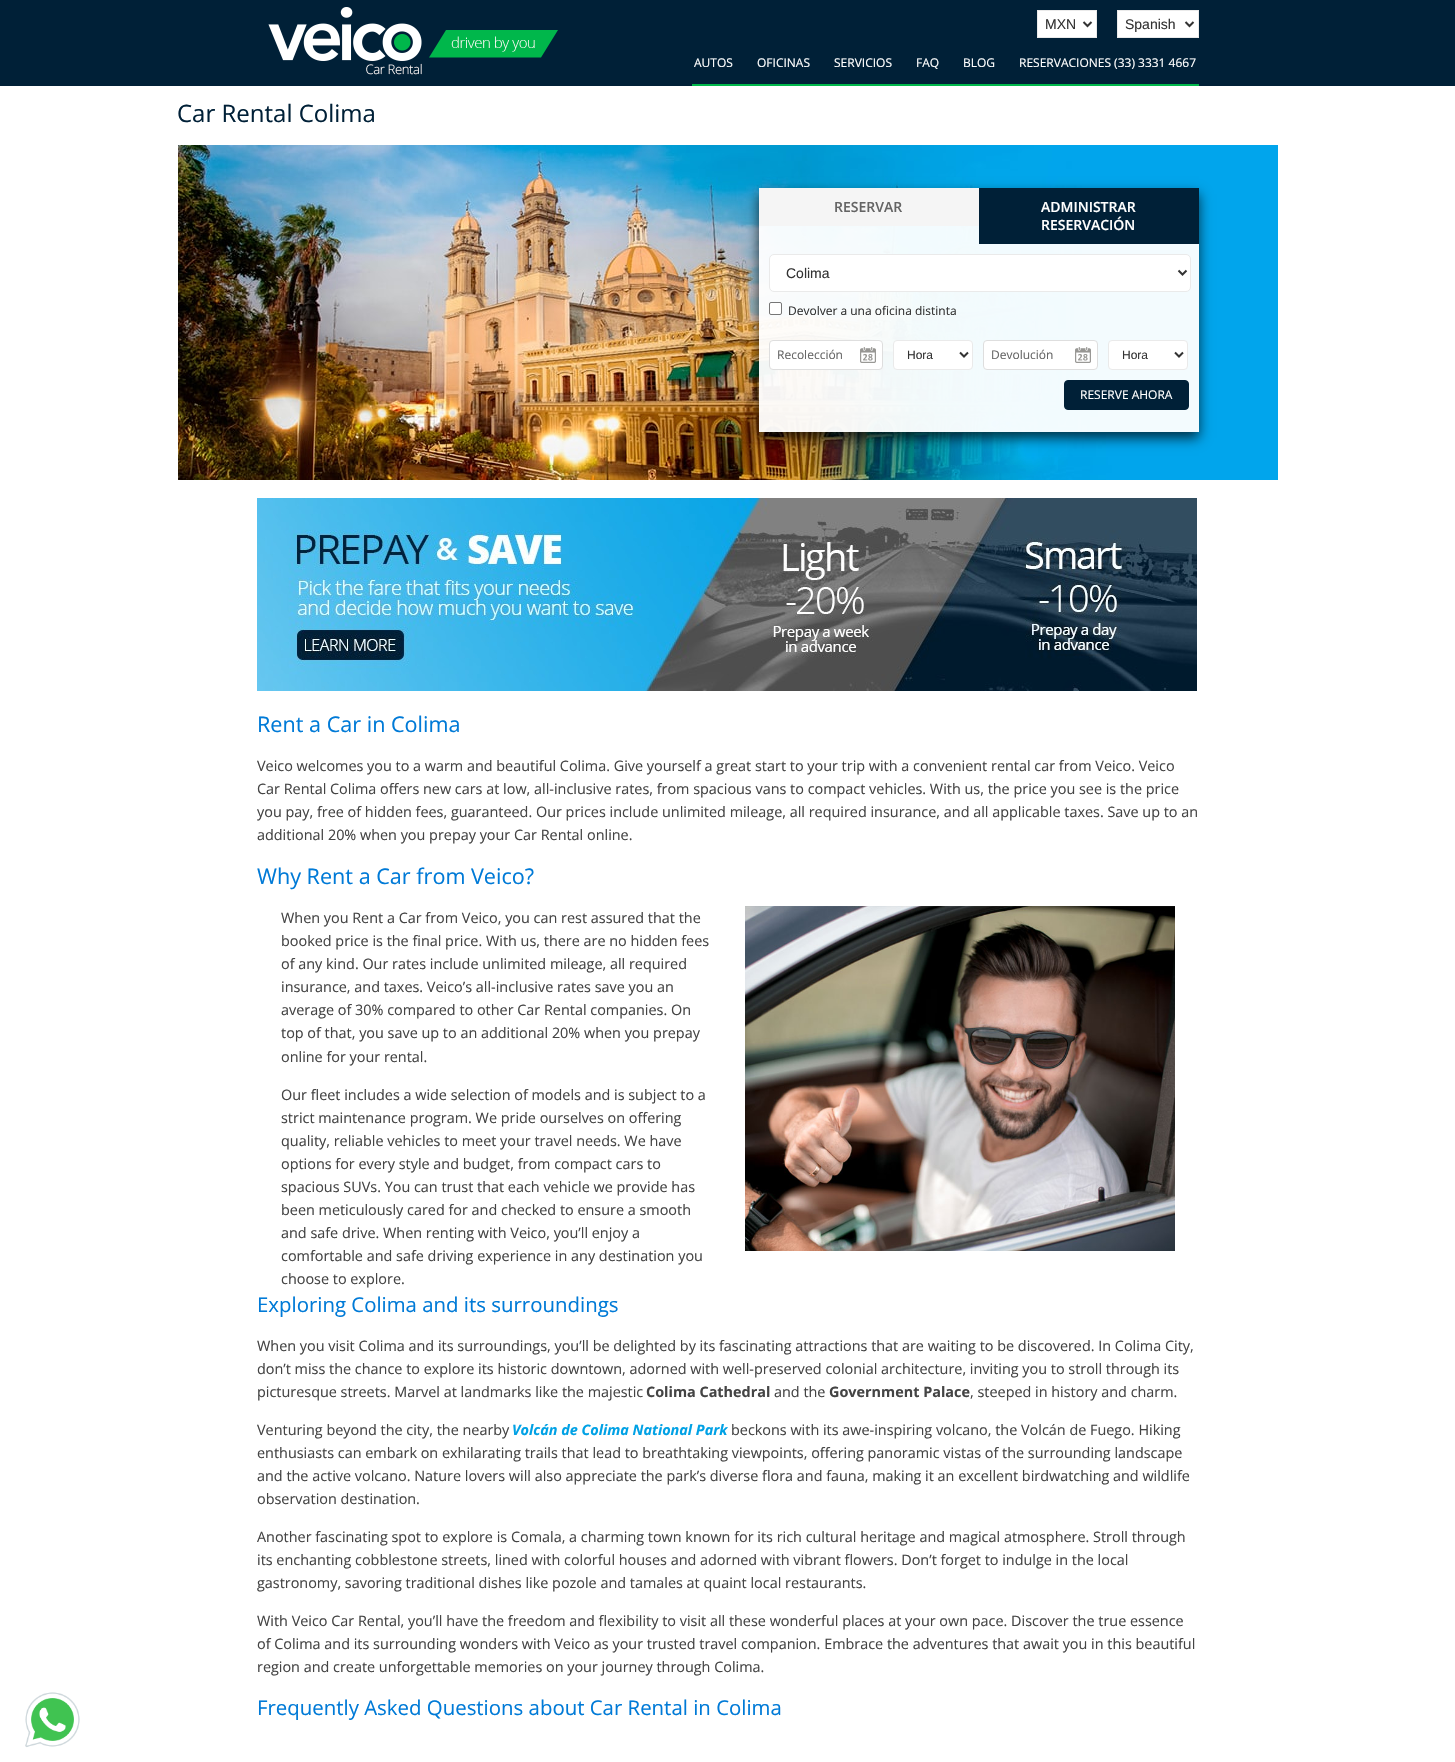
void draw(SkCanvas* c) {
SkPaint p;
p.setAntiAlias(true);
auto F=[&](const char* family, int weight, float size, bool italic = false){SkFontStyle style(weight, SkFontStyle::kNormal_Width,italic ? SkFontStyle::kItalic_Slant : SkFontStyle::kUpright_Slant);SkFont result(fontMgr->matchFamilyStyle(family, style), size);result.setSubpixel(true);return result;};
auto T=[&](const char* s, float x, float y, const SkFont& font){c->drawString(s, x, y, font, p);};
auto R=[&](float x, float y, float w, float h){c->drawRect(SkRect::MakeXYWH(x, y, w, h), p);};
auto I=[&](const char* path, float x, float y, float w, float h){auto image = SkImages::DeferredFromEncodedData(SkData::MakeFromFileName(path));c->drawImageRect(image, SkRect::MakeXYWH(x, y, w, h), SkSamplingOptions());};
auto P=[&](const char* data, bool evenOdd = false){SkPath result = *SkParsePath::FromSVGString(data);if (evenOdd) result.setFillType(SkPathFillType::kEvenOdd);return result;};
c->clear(0xffffffff);
p.setColor(0xff002037);
R(0,0,1455,86);
I("1.png",268,7,290,68);
p.setColor(0xffffffff);
c->drawRect(SkRect::MakeXYWH(1037.5,10.5,59,27),p);
p.setStroke(true);
p.setStrokeWidth(1);
p.setColor(0xffeaeaea);
c->drawRect(SkRect::MakeXYWH(1037.5,10.5,59,27),p);
p.setStrokeWidth(2);
p.setColor(0xff333333);
c->drawPath(P("M1083.5 22l4 4l4-4"),p);
auto f1 = F("Liberation Sans",400,14);
p.setStroke(false);
T("MXN",1045,29,f1);
p.setColor(0xffffffff);
c->drawRect(SkRect::MakeXYWH(1117.5,10.5,81,27),p);
p.setStroke(true);
p.setStrokeWidth(1);
p.setColor(0xffeaeaea);
c->drawRect(SkRect::MakeXYWH(1117.5,10.5,81,27),p);
p.setStrokeWidth(2);
p.setColor(0xff333333);
c->drawPath(P("M1185.5 22l4 4l4-4"),p);
p.setStroke(false);
T("Spanish",1125,29,f1);
p.setColor(0xff00b74b);
R(692,84,507,2);
auto f2 = F("Open Sans",400,12);
p.setColor(0xffffffff);
T("AUTOS",694,67,f2);
T("OFICINAS",757,67,f2);
T("SERVICIOS",834,67,f2);
T("FAQ",916,67,f2);
T("BLOG",963,67,f2);
T("RESERVACIONES (33) 3331 4667",1019,67,f2);
auto f3 = F("Open Sans",400,24);
p.setColor(0xff002037);
T("Car Rental Colima",177,122,f3);
I("2.png",178,145,1100,335);
c->save();
c->clipPath(P("M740 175h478v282h-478zm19 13h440v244h-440z",true),true);
p.setColor(0xb3000000);
p.setMaskFilter(SkMaskFilter::MakeBlur(kNormal_SkBlurStyle, 6));
c->drawRect(SkRect::MakeXYWH(759,194,440,244),p);
p.setMaskFilter(nullptr);
c->restore();
p.setColor(0xf2ffffff);
R(759,226,440,206);
p.setColor(0xfff5f5f5);
R(759,188,220,38);
auto f4 = F("Open Sans",600,14);
p.setColor(0xff656565);
T("RESERVAR",834,212,f4);
p.setColor(0xff002037);
R(979,188,220,56);
p.setColor(0xffffffff);
T("ADMINISTRAR",1041,212,f4);
T("RESERVACIÓN",1041,230,f4);
c->drawRoundRect(SkRect::MakeXYWH(769.5,254.5,421,37),4.5,4.5,p);
p.setStroke(true);
p.setStrokeWidth(1);
p.setColor(0xffeaeaea);
c->drawRoundRect(SkRect::MakeXYWH(769.5,254.5,421,37),4.5,4.5,p);
p.setStrokeWidth(2);
p.setColor(0xff333333);
c->drawPath(P("M1178.5 270.5l4 4l4-4"),p);
p.setStroke(false);
T("Colima",786,278,f1);
p.setColor(0xffffffff);
c->drawRoundRect(SkRect::MakeXYWH(769.5,302.5,12,12),1.5,1.5,p);
p.setStroke(true);
p.setStrokeWidth(1);
p.setColor(0xff767676);
c->drawRoundRect(SkRect::MakeXYWH(769.5,302.5,12,12),1.5,1.5,p);
p.setStroke(false);
p.setColor(0xff333333);
T("Devolver a una oficina distinta",788,315,f2);
p.setColor(0xffffffff);
c->drawRoundRect(SkRect::MakeXYWH(769.5,340.5,113,29),3.5,3.5,p);
p.setStroke(true);
p.setColor(0xffdedede);
c->drawRoundRect(SkRect::MakeXYWH(769.5,340.5,113,29),3.5,3.5,p);
p.setStroke(false);
p.setColor(0xff656565);
T("Recolección",777,359,f2);
I("3.png",860,347,16,16);
p.setColor(0xffffffff);
c->drawRoundRect(SkRect::MakeXYWH(893.5,340.5,79,29),3.5,3.5,p);
p.setStroke(true);
p.setColor(0xffeaeaea);
c->drawRoundRect(SkRect::MakeXYWH(893.5,340.5,79,29),3.5,3.5,p);
p.setStrokeWidth(2);
p.setColor(0xff333333);
c->drawPath(P("M960 352.5l4 4l4-4"),p);
auto f5 = F("Liberation Sans",400,12);
p.setStroke(false);
T("Hora",907,359,f5);
p.setColor(0xffffffff);
c->drawRoundRect(SkRect::MakeXYWH(983.5,340.5,114,29),3.5,3.5,p);
p.setStroke(true);
p.setStrokeWidth(1);
p.setColor(0xffdedede);
c->drawRoundRect(SkRect::MakeXYWH(983.5,340.5,114,29),3.5,3.5,p);
p.setStroke(false);
p.setColor(0xff656565);
T("Devolución",991,359,f2);
I("3.png",1075,347,16,16);
p.setColor(0xffffffff);
c->drawRoundRect(SkRect::MakeXYWH(1108.5,340.5,79,29),3.5,3.5,p);
p.setStroke(true);
p.setColor(0xffeaeaea);
c->drawRoundRect(SkRect::MakeXYWH(1108.5,340.5,79,29),3.5,3.5,p);
p.setStrokeWidth(2);
p.setColor(0xff333333);
c->drawPath(P("M1175 352.5l4 4l4-4"),p);
p.setStroke(false);
T("Hora",1122,359,f5);
p.setColor(0xff002037);
c->drawRoundRect(SkRect::MakeXYWH(1064.5,380.5,124,29),3.5,3.5,p);
p.setStroke(true);
p.setStrokeWidth(1);
c->drawRoundRect(SkRect::MakeXYWH(1064.5,380.5,124,29),3.5,3.5,p);
p.setStroke(false);
p.setColor(0xffffffff);
T("RESERVE AHORA",1080,399,f2);
I("4.png",25,1692,55,56);
I("5.png",257,498,940,193);
auto f6 = F("Open Sans",400,21.6);
p.setColor(0xff007ad7);
T("Rent a Car in Colima",257,732,f6);
auto f7 = F("Open Sans",400,14.4);
p.setColor(0xff444444);
T("Veico welcomes you to a warm and beautiful Colima. Give yourself a great start to your trip with a convenient rental car from Veico. Veico",257,771,f7);
T("Car Rental Colima offers new cars at low, all-inclusive rates, from spacious vans to compact vehicles. With us, the price you see is the price",257,794,f7);
T("you pay, free of hidden fees, guaranteed. Our prices include unlimited mileage, all required insurance, and all applicable taxes. Save up to an",257,817,f7);
T("additional 20% when you prepay your Car Rental online.",257,840,f7);
p.setColor(0xff007ad7);
T("Why Rent a Car from Veico?",257,884,f6);
p.setColor(0xff444444);
T("When you Rent a Car from Veico, you can rest assured that the",281,923,f7);
T("booked price is the final price. With us, there are no hidden fees",281,946,f7);
T("of any kind. Our rates include unlimited mileage, all required",281,969,f7);
T("insurance, and taxes. Veico’s all-inclusive rates save you an",281,992,f7);
T("average of 30% compared to other Car Rental companies. On",281,1015,f7);
T("top of that, you save up to an additional 20% when you prepay",281,1038,f7);
T("online for your rental.",281,1062,f7);
T("Our fleet includes a wide selection of models and is subject to a",281,1100,f7);
T("strict maintenance program. We pride ourselves on offering",281,1123,f7);
T("quality, reliable vehicles to meet your travel needs. We have",281,1146,f7);
T("options for every style and budget, from compact cars to",281,1169,f7);
T("spacious SUVs. You can trust that each vehicle we provide has",281,1192,f7);
T("been meticulously cared for and checked to ensure a smooth",281,1215,f7);
T("and safe drive. When renting with Veico, you’ll enjoy a",281,1238,f7);
T("comfortable and safe driving experience in any destination you",281,1261,f7);
T("choose to explore.",281,1284,f7);
I("6.png",745,906,430,345);
auto f8 = F("Open Sans",400,20.4);
p.setColor(0xff007ad7);
T("Exploring Colima and its surroundings",257,1312,f8);
p.setColor(0xff444444);
T("When you visit Colima and its surroundings, you’ll be delighted by its fascinating attractions that are waiting to be discovered. In Colima City,",257,1351,f7);
T("don’t miss the chance to explore its historic downtown, adorned with well-preserved colonial architecture, inviting you to stroll through its",257,1374,f7);
T("picturesque streets. Marvel at landmarks like the majestic",257,1397,f7);
auto f9 = F("Open Sans",700,14.4);
T("Colima Cathedral",646,1397,f9);
T("and the",774,1397,f7);
T("Government Palace",829,1397,f9);
T(", steeped in history and charm.",970,1397,f7);
T("Venturing beyond the city, the nearby",257,1435,f7);
auto f10 = F("Open Sans",700,14.4,true);
p.setColor(0xff00a1e5);
T("Volcán de Colima National Park",512,1435,f10);
p.setColor(0xff444444);
T("beckons with its awe-inspiring volcano, the Volcán de Fuego. Hiking",731,1435,f7);
T("enthusiasts can embark on exhilarating trails that lead to breathtaking viewpoints, offering panoramic vistas of the surrounding landscape",257,1458,f7);
T("and the active volcano. Nature lovers will also appreciate the park’s diverse flora and fauna, making it an excellent birdwatching and wildlife",257,1481,f7);
T("observation destination.",257,1504,f7);
T("Another fascinating spot to explore is Comala, a charming town known for its rich cultural heritage and magical atmosphere. Stroll through",257,1542,f7);
T("its enchanting cobblestone streets, lined with colorful houses and adorned with vibrant flowers. Don’t forget to indulge in the local",257,1565,f7);
T("gastronomy, savoring traditional dishes like pozole and tamales at quaint local restaurants.",257,1588,f7);
T("With Veico Car Rental, you’ll have the freedom and flexibility to visit all these wonderful places at your own pace. Discover the true essence",257,1626,f7);
T("of Colima and its surrounding wonders with Veico as your trusted travel companion. Embrace the adventures that await you in this beautiful",257,1649,f7);
T("region and create unforgettable memories on your journey through Colima.",257,1672,f7);
p.setColor(0xff007ad7);
T("Frequently Asked Questions about Car Rental in Colima",257,1715,f8);
}
